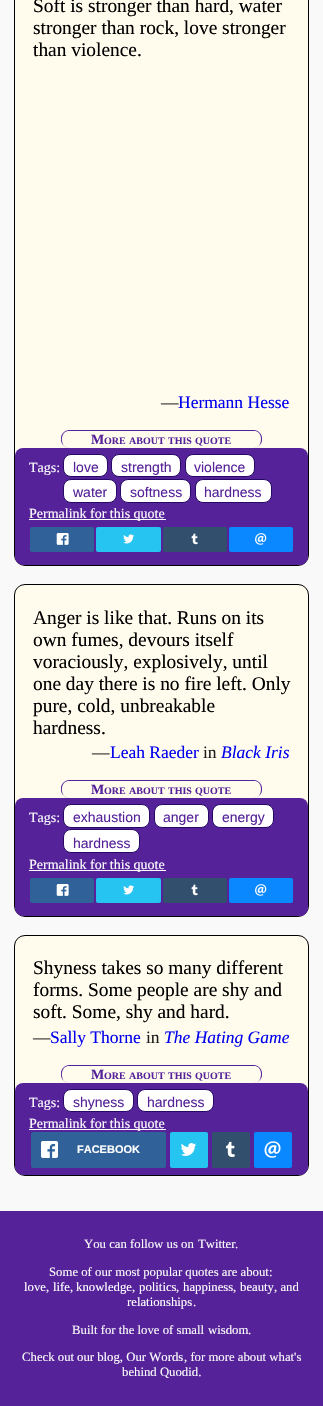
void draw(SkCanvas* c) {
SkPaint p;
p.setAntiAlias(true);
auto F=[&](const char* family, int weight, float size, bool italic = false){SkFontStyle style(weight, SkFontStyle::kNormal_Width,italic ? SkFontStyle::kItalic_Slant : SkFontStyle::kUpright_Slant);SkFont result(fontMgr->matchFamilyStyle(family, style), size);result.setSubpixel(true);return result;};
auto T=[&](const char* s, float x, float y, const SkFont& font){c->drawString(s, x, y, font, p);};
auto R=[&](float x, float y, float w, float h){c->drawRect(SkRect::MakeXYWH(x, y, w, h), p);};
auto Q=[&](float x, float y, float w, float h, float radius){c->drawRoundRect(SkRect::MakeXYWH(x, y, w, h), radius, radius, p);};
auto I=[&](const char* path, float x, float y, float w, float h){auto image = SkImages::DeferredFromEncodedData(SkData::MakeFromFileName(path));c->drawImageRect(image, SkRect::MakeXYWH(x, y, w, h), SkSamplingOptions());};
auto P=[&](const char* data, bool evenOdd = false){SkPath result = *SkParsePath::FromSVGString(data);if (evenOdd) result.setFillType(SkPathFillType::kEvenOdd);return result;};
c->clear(0xfff9f9f9);
p.setColor(0xfffffbed);
c->drawRoundRect(SkRect::MakeXYWH(14.5,-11.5,294,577),10.5,10.5,p);
p.setStroke(true);
p.setStrokeWidth(1);
p.setColor(0xff000000);
c->drawRoundRect(SkRect::MakeXYWH(14.5,-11.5,294,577),10.5,10.5,p);
auto f1 = F("Liberation Serif",400,19.4);
p.setStroke(false);
T("Soft is stronger than hard, water",33,12,f1);
T("stronger than rock, love stronger",33,34,f1);
T("than violence.",33,56,f1);
auto f2 = F("Liberation Serif",400,17.5);
p.setColor(0xff1c1c1c);
T("—",161,408,f2);
p.setColor(0xff0000ee);
T("Hermann Hesse",178,408,f2);
p.setColor(0xff552299);
c->drawPath(P("M69 430h185c4 0 8 4 8 8v2c0 4-4 8-8 8h-185c-4 0-8-4-8-8v-2c0-4 4-8 8-8zm0 1h185c8 0 9 11 4 16l-4 1h-185l-4-1c-5-5-4-16 4-16z",true),p);
auto f3 = F("Liberation Serif",700,14);
T("M",91,444,f3);
auto f4 = F("Liberation Serif",700,10);
T("ORE",104,444,f4);
T("ABOUT",129,444,f4);
T("THIS",168,444,f4);
T("QUOTE",195,444,f4);
Q(15,448,293,117,8);
auto f5 = F("Liberation Serif",400,14);
p.setColor(0xffffffff);
T("Tags:",29,472,f5);
c->drawRoundRect(SkRect::MakeXYWH(63.5,454.5,44,22),7.5,7.5,p);
p.setStroke(true);
p.setColor(0xff250965);
c->drawRoundRect(SkRect::MakeXYWH(63.5,454.5,44,22),7.5,7.5,p);
auto f6 = F("Liberation Sans",400,14);
p.setStroke(false);
p.setColor(0xff552299);
T("love",73,472,f6);
p.setColor(0xffffffff);
c->drawRoundRect(SkRect::MakeXYWH(111.5,454.5,69,22),7.5,7.5,p);
p.setStroke(true);
p.setColor(0xff250965);
c->drawRoundRect(SkRect::MakeXYWH(111.5,454.5,69,22),7.5,7.5,p);
p.setStroke(false);
p.setColor(0xff552299);
T("strength",121,472,f6);
p.setColor(0xffffffff);
c->drawRoundRect(SkRect::MakeXYWH(185.5,454.5,69,22),7.5,7.5,p);
p.setStroke(true);
p.setColor(0xff250965);
c->drawRoundRect(SkRect::MakeXYWH(185.5,454.5,69,22),7.5,7.5,p);
p.setStroke(false);
p.setColor(0xff552299);
T("violence",194,472,f6);
p.setColor(0xffffffff);
c->drawRoundRect(SkRect::MakeXYWH(63.5,479.5,53,23),7.5,7.5,p);
p.setStroke(true);
p.setColor(0xff250965);
c->drawRoundRect(SkRect::MakeXYWH(63.5,479.5,53,23),7.5,7.5,p);
p.setStroke(false);
p.setColor(0xff552299);
T("water",73,497,f6);
p.setColor(0xffffffff);
c->drawRoundRect(SkRect::MakeXYWH(120.5,479.5,70,23),7.5,7.5,p);
p.setStroke(true);
p.setColor(0xff250965);
c->drawRoundRect(SkRect::MakeXYWH(120.5,479.5,70,23),7.5,7.5,p);
p.setStroke(false);
p.setColor(0xff552299);
T("softness",130,497,f6);
p.setColor(0xffffffff);
c->drawRoundRect(SkRect::MakeXYWH(195.5,479.5,76,23),7.5,7.5,p);
p.setStroke(true);
p.setColor(0xff250965);
c->drawRoundRect(SkRect::MakeXYWH(195.5,479.5,76,23),7.5,7.5,p);
p.setStroke(false);
p.setColor(0xff552299);
T("hardness",204,497,f6);
p.setColor(0xffffffff);
R(29,519,137,1);
T("Permalink for this quote",29,518,f5);
p.setColor(0xff306199);
Q(30,527,64,25,2);
I("1.png",56,533,13,12);
p.setColor(0xff26c4f1);
Q(96,527,65,25,2);
I("2.png",123,534,11,10);
p.setColor(0xff32506d);
Q(163,527,64,25,2);
I("3.png",191,533,7,12);
p.setColor(0xff0a88ff);
Q(229,527,64,25,2);
I("4.png",255,533,12,12);
p.setColor(0xfffffbed);
c->drawRoundRect(SkRect::MakeXYWH(14.5,584.5,294,332),10.5,10.5,p);
p.setStroke(true);
p.setColor(0xff000000);
c->drawRoundRect(SkRect::MakeXYWH(14.5,584.5,294,332),10.5,10.5,p);
p.setStroke(false);
T("Anger is like that. Runs on its",33,624,f1);
T("own fumes, devours itself",33,646,f1);
T("voraciously, explosively, until",33,668,f1);
T("one day there is no fire left. Only",33,690,f1);
T("pure, cold, unbreakable",33,712,f1);
T("hardness.",33,734,f1);
p.setColor(0xff1c1c1c);
T("—",92,758,f2);
p.setColor(0xff0000ee);
T("Leah Raeder",110,758,f2);
p.setColor(0xff1c1c1c);
T("in",203,758,f2);
auto f7 = F("Liberation Serif",400,17.5,true);
p.setColor(0xff0000ee);
T("Black Iris",221,758,f7);
p.setColor(0xff552299);
c->drawPath(P("M69 780h185c4 0 8 4 8 8v2c0 4-4 8-8 8h-185c-4 0-8-4-8-8v-2c0-4 4-8 8-8zm0 1h185c8 0 9 11 4 16l-4 1h-185l-4-1c-5-5-4-16 4-16z",true),p);
T("M",91,794,f3);
T("ORE",104,794,f4);
T("ABOUT",129,794,f4);
T("THIS",168,794,f4);
T("QUOTE",195,794,f4);
Q(15,798,293,118,8);
p.setColor(0xffffffff);
T("Tags:",29,822,f5);
c->drawRoundRect(SkRect::MakeXYWH(63.5,804.5,86,23),7.5,7.5,p);
p.setStroke(true);
p.setColor(0xff250965);
c->drawRoundRect(SkRect::MakeXYWH(63.5,804.5,86,23),7.5,7.5,p);
p.setStroke(false);
p.setColor(0xff552299);
T("exhaustion",73,822,f6);
p.setColor(0xffffffff);
c->drawRoundRect(SkRect::MakeXYWH(154.5,804.5,54,23),7.5,7.5,p);
p.setStroke(true);
p.setColor(0xff250965);
c->drawRoundRect(SkRect::MakeXYWH(154.5,804.5,54,23),7.5,7.5,p);
p.setStroke(false);
p.setColor(0xff552299);
T("anger",163,822,f6);
p.setColor(0xffffffff);
c->drawRoundRect(SkRect::MakeXYWH(212.5,804.5,61,23),7.5,7.5,p);
p.setStroke(true);
p.setColor(0xff250965);
c->drawRoundRect(SkRect::MakeXYWH(212.5,804.5,61,23),7.5,7.5,p);
p.setStroke(false);
p.setColor(0xff552299);
T("energy",222,822,f6);
p.setColor(0xffffffff);
c->drawRoundRect(SkRect::MakeXYWH(63.5,829.5,76,23),7.5,7.5,p);
p.setStroke(true);
p.setColor(0xff250965);
c->drawRoundRect(SkRect::MakeXYWH(63.5,829.5,76,23),7.5,7.5,p);
p.setStroke(false);
p.setColor(0xff552299);
T("hardness",73,848,f6);
p.setColor(0xffffffff);
R(29,870,137,1);
T("Permalink for this quote",29,869,f5);
p.setColor(0xff306199);
Q(30,878,64,25,2);
I("1.png",56,884,13,12);
p.setColor(0xff26c4f1);
Q(96,878,65,25,2);
I("2.png",123,885,11,10);
p.setColor(0xff32506d);
Q(163,878,64,25,2);
I("3.png",191,884,7,12);
p.setColor(0xff0a88ff);
Q(229,878,64,25,2);
I("4.png",255,884,12,12);
p.setColor(0xfffffbed);
c->drawRoundRect(SkRect::MakeXYWH(14.5,935.5,294,240),10.5,10.5,p);
p.setStroke(true);
p.setColor(0xff000000);
c->drawRoundRect(SkRect::MakeXYWH(14.5,935.5,294,240),10.5,10.5,p);
p.setStroke(false);
T("Shyness takes so many different",33,974,f1);
T("forms. Some people are shy and",33,996,f1);
T("soft. Some, shy and hard.",33,1018,f1);
p.setColor(0xff1c1c1c);
T("—",33,1043,f2);
p.setColor(0xff0000ee);
T("Sally Thorne",50,1043,f2);
p.setColor(0xff1c1c1c);
T("in",146,1043,f2);
p.setColor(0xff0000ee);
T("The Hating Game",164,1043,f7);
p.setColor(0xff552299);
c->drawPath(P("M69 1065h185c4 0 8 4 8 8v2c0 4-4 8-8 8h-185c-4 0-8-4-8-8v-2c0-4 4-8 8-8zm0 1h185c8 0 9 11 4 16l-4 1h-185l-4-1c-5-5-4-16 4-16z",true),p);
T("M",91,1079,f3);
T("ORE",104,1079,f4);
T("ABOUT",129,1079,f4);
T("THIS",168,1079,f4);
T("QUOTE",195,1079,f4);
Q(15,1083,293,92,8);
p.setColor(0xffffffff);
T("Tags:",29,1107,f5);
c->drawRoundRect(SkRect::MakeXYWH(63.5,1089.5,70,22),7.5,7.5,p);
p.setStroke(true);
p.setColor(0xff250965);
c->drawRoundRect(SkRect::MakeXYWH(63.5,1089.5,70,22),7.5,7.5,p);
p.setStroke(false);
p.setColor(0xff552299);
T("shyness",73,1107,f6);
p.setColor(0xffffffff);
c->drawRoundRect(SkRect::MakeXYWH(137.5,1089.5,76,22),7.5,7.5,p);
p.setStroke(true);
p.setColor(0xff250965);
c->drawRoundRect(SkRect::MakeXYWH(137.5,1089.5,76,22),7.5,7.5,p);
p.setStroke(false);
p.setColor(0xff552299);
T("hardness",147,1107,f6);
p.setColor(0xffffffff);
R(29,1129,137,1);
T("Permalink for this quote",29,1128,f5);
p.setColor(0xff306199);
Q(31,1132,135,36,2);
I("5.png",41,1141,17,17);
auto f8 = F("Liberation Sans",700,11);
p.setColor(0xffffffff);
T("FACEBOOK",77,1153,f8);
p.setColor(0xff26c4f1);
Q(170,1132,38,36,2);
I("6.png",180,1143,17,13);
p.setColor(0xff32506d);
Q(212,1132,38,36,2);
I("7.png",226,1141,9,16);
p.setColor(0xff0a88ff);
Q(254,1132,38,36,2);
I("8.png",264,1141,17,17);
p.setColor(0xff552299);
R(0,1211,323,195);
auto f9 = F("Liberation Serif",400,12.75);
p.setColor(0xfff9f9f9);
T("You can follow us on",84,1248,f9);
p.setColor(0xffffffff);
T("Twitter",198,1248,f9);
p.setColor(0xfff9f9f9);
T(".",235,1248,f9);
T("Some of our most popular quotes are about:",49,1276,f9);
p.setColor(0xffffffff);
T("love",24,1291,f9);
p.setColor(0xfff9f9f9);
T(",",46,1291,f9);
p.setColor(0xffffffff);
T("life",53,1291,f9);
p.setColor(0xfff9f9f9);
T(",",70,1291,f9);
p.setColor(0xffffffff);
T("knowledge",76,1291,f9);
p.setColor(0xfff9f9f9);
T(",",132,1291,f9);
p.setColor(0xffffffff);
T("politics",139,1291,f9);
p.setColor(0xfff9f9f9);
T(",",176,1291,f9);
p.setColor(0xffffffff);
T("happiness",183,1291,f9);
p.setColor(0xfff9f9f9);
T(",",233,1291,f9);
p.setColor(0xffffffff);
T("beauty",240,1291,f9);
p.setColor(0xfff9f9f9);
T(", and",274,1291,f9);
p.setColor(0xffffffff);
T("relationships",127,1306,f9);
p.setColor(0xfff9f9f9);
T(".",193,1306,f9);
T("Built for the love of small",72,1334,f9);
p.setColor(0xffffffff);
T("wisdom",208,1334,f9);
p.setColor(0xfff9f9f9);
T(".",248,1334,f9);
T("Check out",22,1361,f9);
p.setColor(0xffffffff);
T("our blog, Our Words",77,1361,f9);
p.setColor(0xfff9f9f9);
T(", for more about what's",184,1361,f9);
T("behind Quodid.",122,1376,f9);
}
